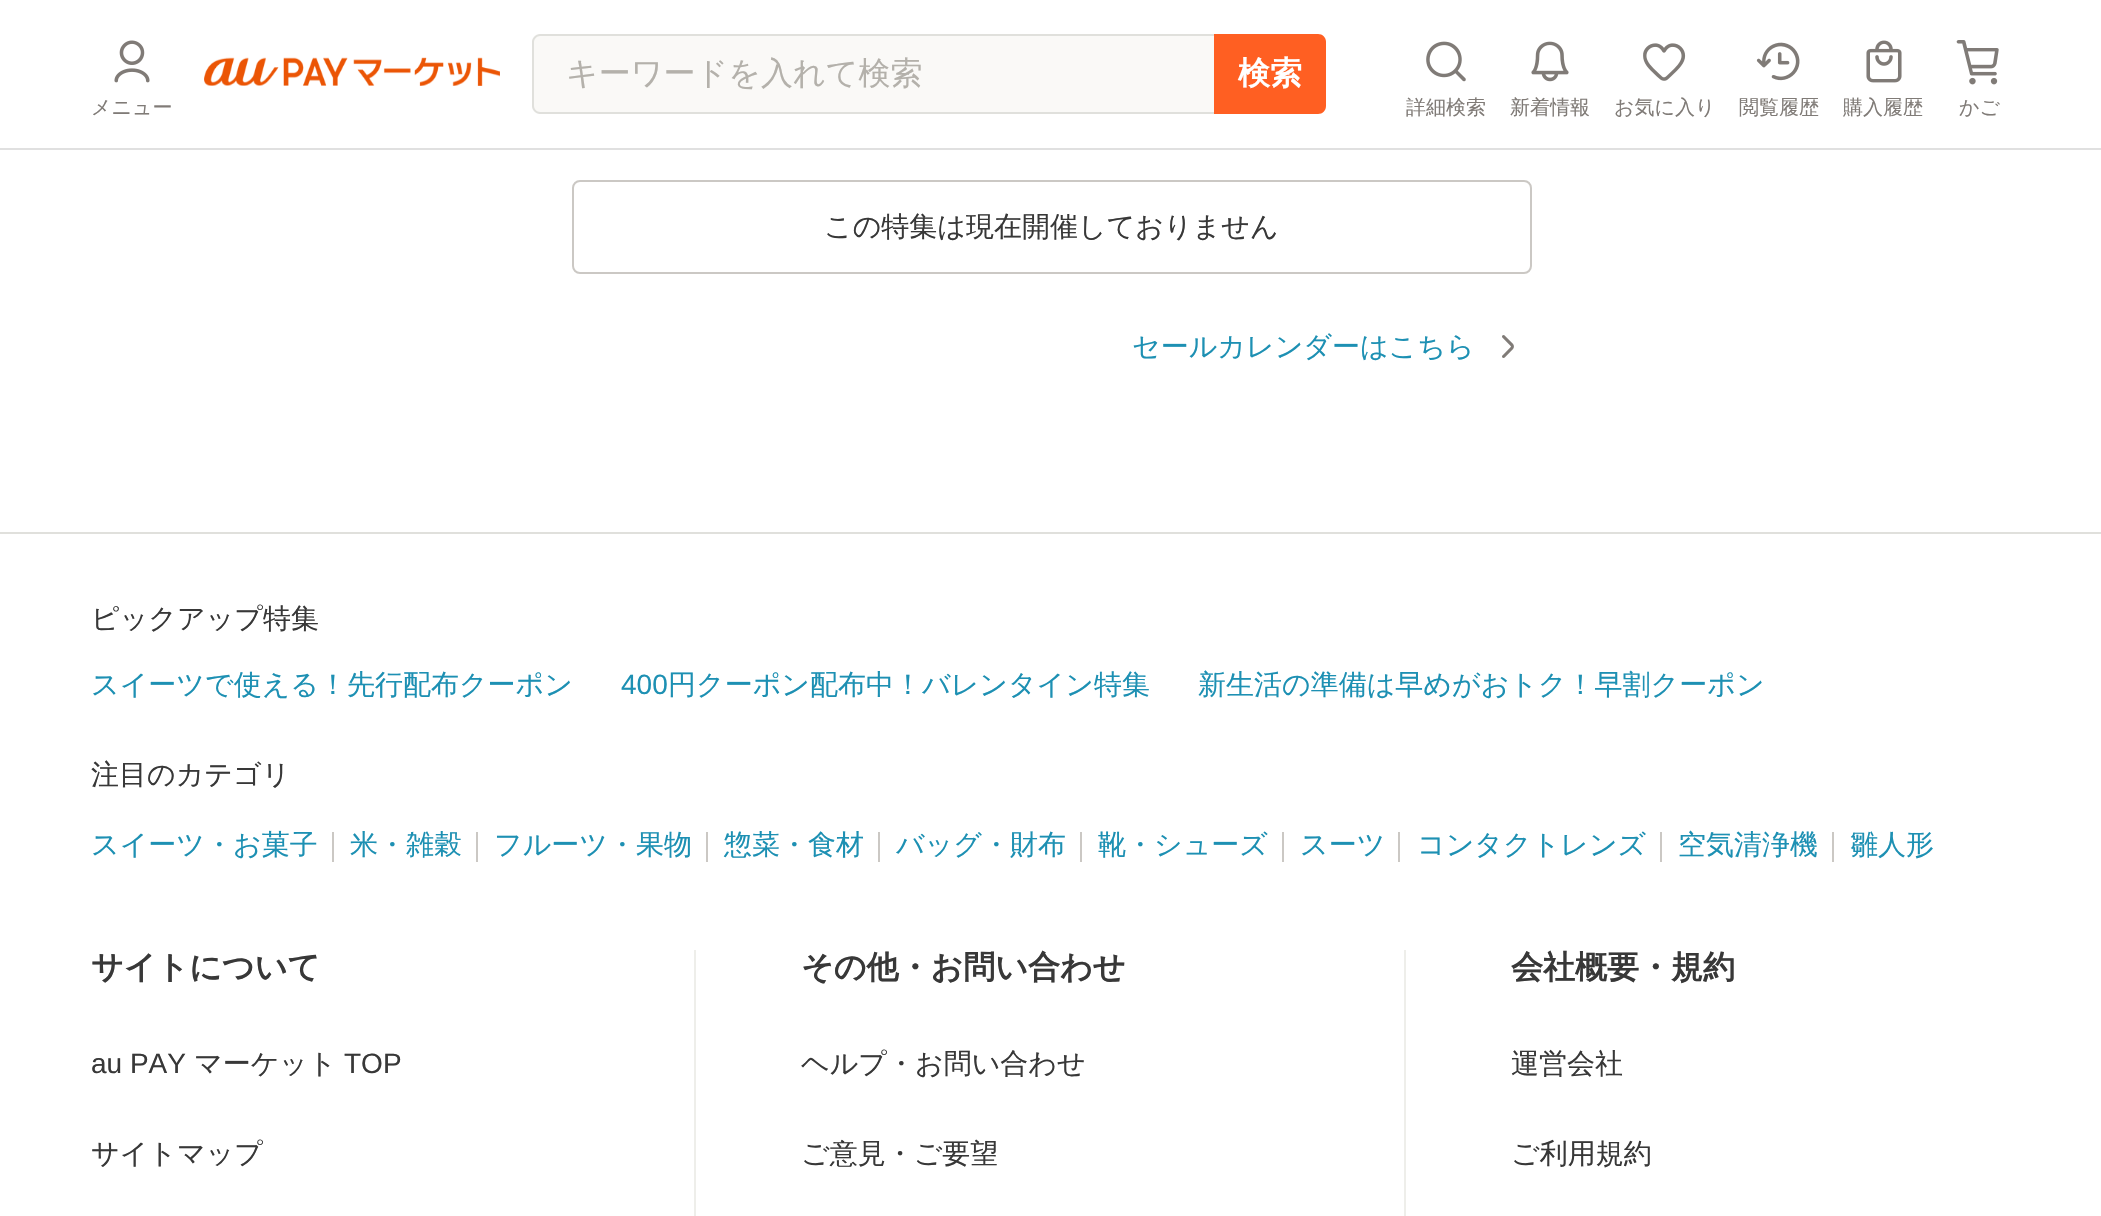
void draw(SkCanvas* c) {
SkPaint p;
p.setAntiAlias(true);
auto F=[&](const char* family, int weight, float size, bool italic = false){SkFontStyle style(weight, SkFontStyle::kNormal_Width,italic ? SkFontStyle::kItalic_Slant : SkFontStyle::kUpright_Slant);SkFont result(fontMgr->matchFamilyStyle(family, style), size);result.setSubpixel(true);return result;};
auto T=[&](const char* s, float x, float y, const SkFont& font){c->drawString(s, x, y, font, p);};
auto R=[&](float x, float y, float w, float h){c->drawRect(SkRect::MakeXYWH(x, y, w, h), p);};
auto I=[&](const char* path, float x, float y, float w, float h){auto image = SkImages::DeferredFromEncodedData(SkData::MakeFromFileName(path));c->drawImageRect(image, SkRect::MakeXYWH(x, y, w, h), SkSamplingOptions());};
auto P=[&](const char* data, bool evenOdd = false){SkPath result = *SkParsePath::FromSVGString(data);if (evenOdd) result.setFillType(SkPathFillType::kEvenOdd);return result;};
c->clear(0xffffffff);
p.setColor(0xffe0e0e0);
R(0,148,2101,2);
I("1.png",204,57,296,29);
p.setColor(0xfffaf9f7);
c->drawPath(P("M540 34h674v80h-674c-4.5 0-8-3.5-8-8v-64c0-4.5 3.5-8 8-8z"),p);
p.setColor(0xffe0e0dc);
c->drawPath(P("M540 34h674v80h-674c-4 0-8-4-8-8v-64c0-4 4-8 8-8zm0 2h674v76h-674c-3 0-6-3-6-6v-64c0-3 3-6 6-6z",true),p);
auto f1 = F("WenQuanYi Zen Hei",500,32);
p.setColor(0xffb4b1ab);
T("キーワードを入れて検索",566,84,f1);
p.setColor(0xffff5f22);
c->drawPath(P("M1214 34h104c4.5 0 8 3.5 8 8v64c0 4.5-3.5 8-8 8h-104z"),p);
auto f2 = F("WenQuanYi Zen Hei",700,32);
p.setColor(0xffffffff);
T("検索",1238,84,f2);
I("2.png",114,40,36,43);
auto f3 = F("WenQuanYi Zen Hei",500,20);
p.setColor(0xff807b77);
T("メニュー",91,114,f3);
I("3.png",1426,41,40,41);
T("詳細検索",1406,114,f3);
I("4.png",1531,41,38,41);
T("新着情報",1510,114,f3);
I("5.png",1643,43,43,38);
T("お気に入り",1614,114,f3);
I("6.png",1756,42,44,39);
T("閲覧履歴",1739,114,f3);
I("7.png",1866,40,36,43);
T("購入履歴",1843,114,f3);
I("8.png",1956,40,43,45);
T("かご",1959,114,f3);
p.setStroke(true);
p.setStrokeWidth(2);
p.setColor(0xffcbc8c4);
c->drawRoundRect(SkRect::MakeXYWH(573,181,958,92),7,7,p);
auto f4 = F("WenQuanYi Zen Hei",500,28);
p.setStroke(false);
p.setColor(0xff383838);
T("この特集は現在開催しておりません",824,236,f4);
p.setColor(0xff1d90b3);
T("セールカレンダーはこちら",1132,356,f4);
I("9.png",1502,335,12,23);
p.setColor(0xffe0e0dc);
R(0,532,2101,2);
p.setColor(0xff383838);
T("ピックアップ特集",91,628,f4);
p.setColor(0xff1d90b3);
T("スイーツで使える！先行配布クーポン",91,694,f4);
auto f5 = F("Liberation Sans",400,28);
T("400",621,694,f5);
T("円クーポン配布中！バレンタイン特集",668,694,f4);
T("新生活の準備は早めがおトク！早割クーポン",1198,694,f4);
p.setColor(0xff383838);
T("注目のカテゴリ",91,784,f4);
p.setColor(0xff1d90b3);
T("スイーツ・お菓子",91,854,f4);
p.setColor(0xffcbc8c4);
R(332,832,2,30);
p.setColor(0xff1d90b3);
T("米・雑穀",350,854,f4);
p.setColor(0xffcbc8c4);
R(476,832,2,30);
p.setColor(0xff1d90b3);
T("フルーツ・果物",494,854,f4);
p.setColor(0xffcbc8c4);
R(706,832,2,30);
p.setColor(0xff1d90b3);
T("惣菜・食材",724,854,f4);
p.setColor(0xffcbc8c4);
R(878,832,2,30);
p.setColor(0xff1d90b3);
T("バッグ・財布",896,854,f4);
p.setColor(0xffcbc8c4);
R(1080,832,2,30);
p.setColor(0xff1d90b3);
T("靴・シューズ",1098,854,f4);
p.setColor(0xffcbc8c4);
R(1282,832,2,30);
p.setColor(0xff1d90b3);
T("スーツ",1300,854,f4);
p.setColor(0xffcbc8c4);
R(1398,832,2,30);
p.setColor(0xff1d90b3);
T("コンタクトレンズ",1417,854,f4);
p.setColor(0xffcbc8c4);
R(1660,832,2,30);
p.setColor(0xff1d90b3);
T("空気清浄機",1678,854,f4);
p.setColor(0xffcbc8c4);
R(1832,832,2,30);
p.setColor(0xff1d90b3);
T("雛人形",1850,854,f4);
p.setColor(0xff383838);
T("サイトについて",91,978,f2);
T("au PAY",91,1073,f5);
T("マーケット",194,1073,f4);
T("TOP",344,1073,f5);
T("サイトマップ",91,1163,f4);
p.setColor(0xffeeeeea);
R(694,950,2,266);
p.setColor(0xff383838);
T("その他・お問い合わせ",801,978,f2);
T("ヘルプ・お問い合わせ",801,1073,f4);
T("ご意見・ご要望",801,1163,f4);
p.setColor(0xffeeeeea);
R(1404,950,2,266);
p.setColor(0xff383838);
T("会社概要・規約",1511,978,f2);
T("運営会社",1511,1073,f4);
T("ご利用規約",1511,1163,f4);
}
